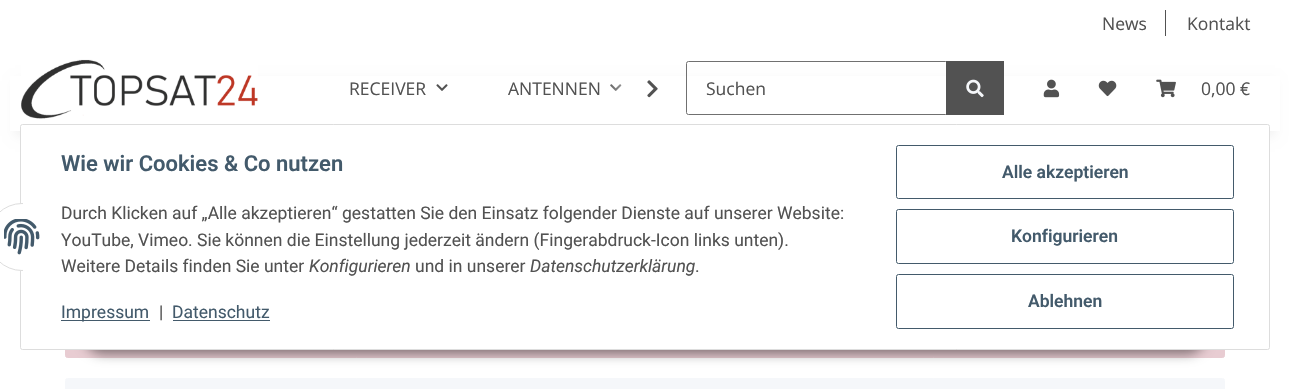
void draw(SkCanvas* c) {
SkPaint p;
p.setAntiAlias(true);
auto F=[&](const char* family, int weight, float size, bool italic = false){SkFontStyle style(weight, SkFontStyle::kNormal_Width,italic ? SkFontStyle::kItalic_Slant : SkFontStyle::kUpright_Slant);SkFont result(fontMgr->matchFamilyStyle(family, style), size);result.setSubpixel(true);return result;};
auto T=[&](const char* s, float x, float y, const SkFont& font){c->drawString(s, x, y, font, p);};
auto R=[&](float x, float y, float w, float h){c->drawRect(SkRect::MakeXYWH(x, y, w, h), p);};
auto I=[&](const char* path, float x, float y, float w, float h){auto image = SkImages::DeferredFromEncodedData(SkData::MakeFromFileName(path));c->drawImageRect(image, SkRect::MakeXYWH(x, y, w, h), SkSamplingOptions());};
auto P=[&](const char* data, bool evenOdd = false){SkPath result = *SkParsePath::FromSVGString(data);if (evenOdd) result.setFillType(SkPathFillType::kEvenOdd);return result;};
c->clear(0xffffffff);
auto f1 = F("Open Sans",400,17.5);
p.setColor(0xff525252);
T("News",1102,30,f1);
R(1165,10,1,26);
T("Kontakt",1187,30,f1);
p.setColor(0x0f000000);
p.setMaskFilter(SkMaskFilter::MakeBlur(kNormal_SkBlurStyle, 5.5));
c->drawRect(SkRect::MakeXYWH(15,81,1260,55),p);
p.setMaskFilter(nullptr);
p.setColor(0xffffffff);
R(10,76,1270,55);
I("1.png",21,59,237,60);
p.setColor(0xff525252);
T("RECEIVER",349,95,f1);
I("2.png",436,84,12,7);
T("ANTENNEN",508,95,f1);
I("3.png",610,84,12,7);
{
const SkColor colors[] = {0x03ffffff,0xffffffff};
const float stops[] = {0,.7};
const SkPoint ends[] = {{606,89}, {666,89}};
p.setShader(SkGradientShader::MakeLinear(ends, colors, stops, 2, SkTileMode::kClamp));
p.setAlpha(255);
}
R(610,84,12,7);
I("4.png",647,80,11,18);
p.setStroke(true);
p.setStrokeWidth(1);
p.setShader(nullptr);
p.setColor(0xff707070);
c->drawRoundRect(SkRect::MakeXYWH(686.5,61.5,261,53),2,2,p);
p.setStroke(false);
p.setColor(0xff525252);
T("Suchen",706,95,f1);
R(946,61,58,54);
I("5.png",966,79,18,19);
I("6.png",1043,79,17,19);
I("7.png",1098,80,19,17);
I("8.png",1156,79,20,19);
T("0,00 €",1201,95,f1);
p.setColor(0xffe8ccd2);
c->drawRoundRect(SkRect::MakeXYWH(65.5,299.5,1159,58),2,2,p);
p.setStroke(true);
c->drawRoundRect(SkRect::MakeXYWH(65.5,299.5,1159,58),2,2,p);
p.setStroke(false);
p.setColor(0x73000000);
p.setMaskFilter(SkMaskFilter::MakeBlur(kNormal_SkBlurStyle, 6));
c->drawRoundRect(SkRect::MakeXYWH(84,314,1122,40),20,20,p);
p.setMaskFilter(nullptr);
p.setColor(0xffffffff);
c->drawRoundRect(SkRect::MakeXYWH(20.5,124.5,1249,225),2,2,p);
p.setStroke(true);
p.setColor(0xffdddddd);
c->drawRoundRect(SkRect::MakeXYWH(20.5,124.5,1249,225),2,2,p);
p.setStroke(false);
p.setColor(0xffffffff);
c->drawCircle(22,237,33.5,p);
p.setStroke(true);
p.setColor(0xffdddddd);
c->drawCircle(22,237,33.5,p);
p.setStroke(false);
p.setColor(0xffffffff);
R(23,203,33,68);
I("9.png",4,219,36,36);
auto f2 = F("Roboto",600,22);
p.setColor(0xff435a6b);
T("Wie wir Cookies & Co nutzen",61,171,f2);
auto f3 = F("Roboto",400,17.5);
p.setColor(0xff525252);
T("Durch Klicken auf „Alle akzeptieren“ gestatten Sie den Einsatz folgender Dienste auf unserer Website:",61,219,f3);
T("YouTube, Vimeo. Sie können die Einstellung jederzeit ändern (Fingerabdruck-Icon links unten).",61,246,f3);
T("Weitere Details finden Sie unter",61,272,f3);
auto f4 = F("Roboto",400,17.5,true);
T("Konfigurieren",309,272,f4);
T("und in unserer",415,272,f3);
T("Datenschutzerklärung",530,272,f4);
T(".",695,272,f3);
p.setColor(0xff435a6b);
R(61,320,89,1);
T("Impressum",61,318,f3);
p.setColor(0xff525252);
T("|",159,318,f3);
p.setColor(0xff435a6b);
T("Datenschutz",172,318,f3);
R(173,320,97,1);
p.setStroke(true);
c->drawRoundRect(SkRect::MakeXYWH(896.5,145.5,337,53),2,2,p);
auto f5 = F("Roboto",600,17.5);
p.setStroke(false);
T("Alle akzeptieren",1002,178,f5);
p.setStroke(true);
c->drawRoundRect(SkRect::MakeXYWH(896.5,209.5,337,54),2,2,p);
p.setStroke(false);
T("Konfigurieren",1011,242,f5);
p.setStroke(true);
c->drawRoundRect(SkRect::MakeXYWH(896.5,274.5,337,54),2,2,p);
p.setStroke(false);
T("Ablehnen",1028,307,f5);
p.setStroke(true);
p.setColor(0xfff5f7fa);
c->drawRoundRect(SkRect::MakeXYWH(65.5,378.5,1159,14),2,2,p);
p.setStroke(false);
c->drawPath(P("M67 379h1156c.5 0 1 .5 1 1v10h-1158v-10c0-.5 .5-1 1-1z"),p);
}
